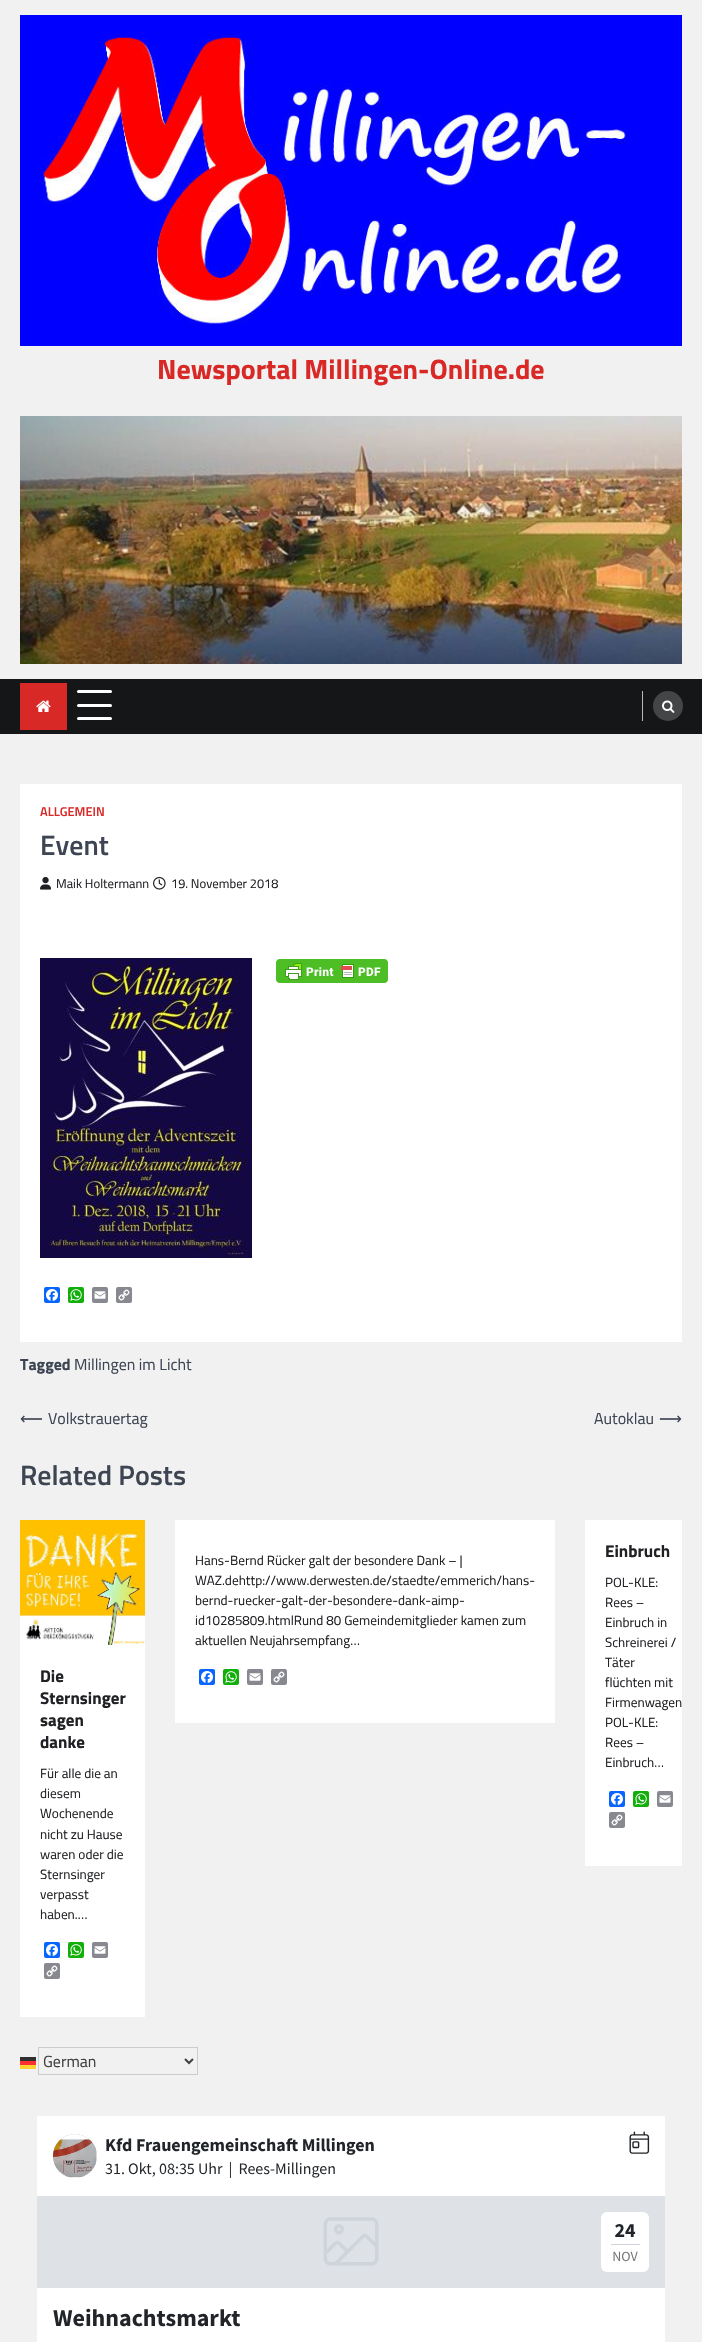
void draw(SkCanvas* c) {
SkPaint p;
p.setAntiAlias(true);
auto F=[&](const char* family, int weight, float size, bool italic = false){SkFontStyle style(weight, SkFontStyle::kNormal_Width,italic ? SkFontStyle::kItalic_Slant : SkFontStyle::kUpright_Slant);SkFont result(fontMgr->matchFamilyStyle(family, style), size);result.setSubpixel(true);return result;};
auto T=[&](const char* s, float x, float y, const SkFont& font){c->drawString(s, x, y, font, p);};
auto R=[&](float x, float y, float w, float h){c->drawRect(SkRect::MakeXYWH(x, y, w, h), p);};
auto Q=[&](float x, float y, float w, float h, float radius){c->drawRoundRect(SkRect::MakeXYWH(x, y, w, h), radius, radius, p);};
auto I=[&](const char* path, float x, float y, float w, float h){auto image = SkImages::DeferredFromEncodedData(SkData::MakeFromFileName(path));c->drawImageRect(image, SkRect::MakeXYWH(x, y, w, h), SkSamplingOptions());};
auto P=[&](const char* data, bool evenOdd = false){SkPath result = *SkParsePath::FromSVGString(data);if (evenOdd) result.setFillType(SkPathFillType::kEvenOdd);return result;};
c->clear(0xfff1f1f1);
I("1.png",20,15,662,331);
auto f1 = F("Titillium Web",700,28);
p.setColor(0xffd82926);
T("Newsportal Millingen-Online.de",157,379,f1);
I("2.png",20,416,662,248);
p.setColor(0xff151618);
R(0,679,702,55);
p.setColor(0xffd82926);
R(20,683,47,47);
I("3.png",36,700,15,12);
p.setColor(0xffffffff);
Q(77,690,35,3,1.5);
Q(77,704,35,3,1.5);
Q(77,717,35,3,1.5);
p.setColor(0xffb9b9ba);
R(642,691,1,30);
p.setColor(0xff444546);
c->drawCircle(668,706,15,p);
I("4.png",662,700,13,13);
p.setColor(0xffffffff);
R(20,784,662,558);
auto f2 = F("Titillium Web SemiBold",600,12.75);
p.setColor(0xffd82926);
T("ALLGEMEIN",40,816,f2);
auto f3 = F("Titillium Web SemiBold",600,28);
p.setColor(0xff3d4452);
T("Event",40,855,f3);
I("5.png",40,876,11,14);
auto f4 = F("Titillium Web",400,12.75);
p.setColor(0xff202124);
T("Maik Holtermann",56,888,f4);
I("6.png",153,876,13,14);
T("19. November 2018",171,888,f4);
I("7.png",40,958,212,300);
I("8.png",276,959,112,24);
p.setColor(0xff0866ff);
Q(44,1287,16,16,2);
I("9.png",46,1289,12,12);
p.setColor(0xff12af0a);
Q(68,1287,16,16,2);
I("10.png",70,1289,12,12);
p.setColor(0xff888990);
Q(92,1287,16,16,2);
I("11.png",94,1291,12,8);
Q(116,1287,16,16,2);
I("12.png",118,1289,12,12);
auto f5 = F("Titillium Web",700,16);
p.setColor(0xff3d4452);
T("Tagged",20,1370,f5);
auto f6 = F("Titillium Web",400,16);
T("Millingen im Licht",74,1370,f6);
auto f7 = F("DejaVu Sans",400,16);
T("⟵",20,1424,f7);
T("Volkstrauertag",48,1424,f6);
T("Autoklau",594,1424,f6);
T("⟶",659,1424,f7);
T("Related Posts",20,1485,f3);
p.setColor(0xffffffff);
R(175,1520,380,203);
auto f8 = F("Titillium Web",400,13.35);
p.setColor(0xff202124);
T("Hans-Bernd Rücker galt der besondere Dank – |",195,1565,f8);
T("WAZ.dehttp://www.derwesten.de/staedte/emmerich/hans-",195,1585,f8);
T("bernd-ruecker-galt-der-besondere-dank-aimp-",195,1605,f8);
T("id10285809.htmlRund 80 Gemeindemitglieder kamen zum",195,1625,f8);
T("aktuellen Neujahrsempfang…",195,1645,f8);
p.setColor(0xff0866ff);
Q(199,1669,16,16,2);
I("9.png",201,1671,12,12);
p.setColor(0xff12af0a);
Q(223,1669,16,16,2);
I("10.png",225,1671,12,12);
p.setColor(0xff888990);
Q(247,1669,16,16,2);
I("11.png",249,1673,12,8);
Q(271,1669,16,16,2);
I("12.png",273,1671,12,12);
p.setColor(0xffffffff);
R(585,1520,97,346);
auto f9 = F("Titillium Web",700,17);
p.setColor(0xff202124);
T("Einbruch",605,1557,f9);
T("POL-KLE:",605,1587,f8);
T("Rees –",605,1607,f8);
T("Einbruch in",605,1627,f8);
T("Schreinerei /",605,1647,f8);
T("Täter",605,1667,f8);
T("flüchten mit",605,1687,f8);
T("Firmenwagen",605,1707,f8);
T("POL-KLE:",605,1727,f8);
T("Rees –",605,1747,f8);
T("Einbruch…",605,1767,f8);
p.setColor(0xff0866ff);
Q(609,1791,16,16,2);
I("9.png",611,1793,12,12);
p.setColor(0xff12af0a);
Q(633,1791,16,16,2);
I("10.png",635,1793,12,12);
p.setColor(0xff888990);
Q(657,1791,16,16,2);
I("11.png",659,1795,12,8);
Q(609,1812,16,16,2);
I("12.png",611,1814,12,12);
p.setColor(0xffffffff);
R(20,1645,125,372);
I("13.png",20,1520,125,125);
p.setColor(0xff202124);
T("Die",40,1682,f9);
T("Sternsinger",40,1704,f9);
T("sagen",40,1726,f9);
T("danke",40,1748,f9);
T("Für alle die an",40,1778,f8);
T("diesem",40,1798,f8);
T("Wochenende",40,1818,f8);
T("nicht zu Hause",40,1839,f8);
T("waren oder die",40,1859,f8);
T("Sternsinger",40,1879,f8);
T("verpasst",40,1899,f8);
T("haben.…",40,1919,f8);
p.setColor(0xff0866ff);
Q(44,1942,16,16,2);
I("9.png",46,1944,12,12);
p.setColor(0xff12af0a);
Q(68,1942,16,16,2);
I("10.png",70,1944,12,12);
p.setColor(0xff888990);
Q(92,1942,16,16,2);
I("11.png",94,1946,12,8);
Q(44,1963,16,16,2);
I("12.png",46,1965,12,12);
p.setColor(0xff303030);
R(20,2057,16,4);
p.setStroke(true);
p.setStrokeWidth(1);
p.setColor(0xffcccccc);
c->drawRect(SkRect::MakeXYWH(38.5,2047.5,159,27),p);
p.setStrokeWidth(2);
p.setColor(0xff404040);
c->drawPath(P("M185 2059l4 4l4-4"),p);
p.setStroke(false);
T("German",43,2067,f6);
p.setColor(0xfffc3030);
R(20,2061,16,4);
p.setColor(0xfffcd330);
R(20,2065,16,4);
I("14.png",37,2116,628,226);
}
